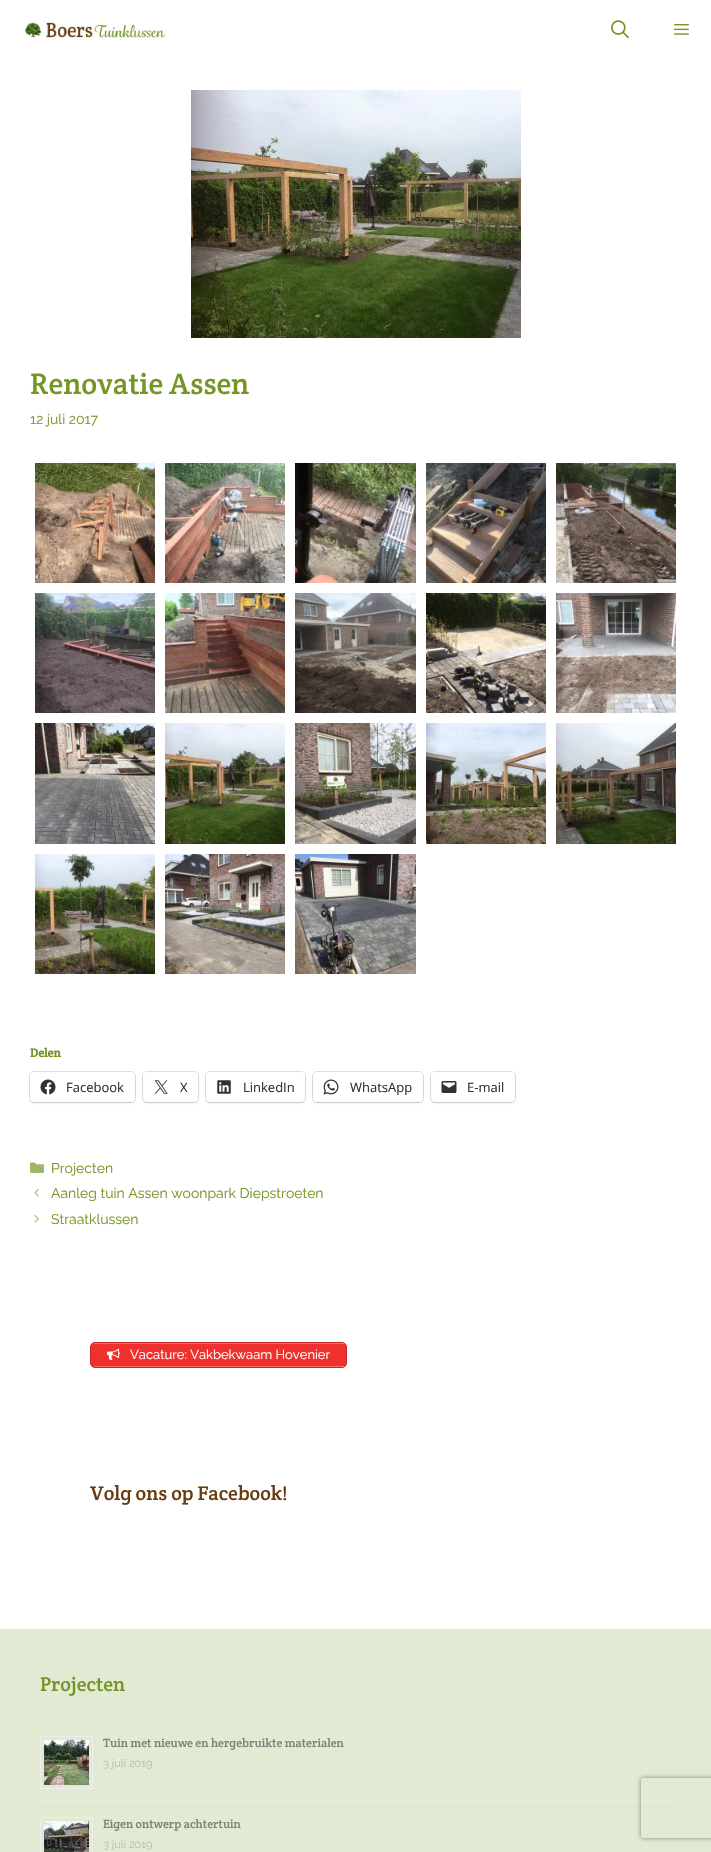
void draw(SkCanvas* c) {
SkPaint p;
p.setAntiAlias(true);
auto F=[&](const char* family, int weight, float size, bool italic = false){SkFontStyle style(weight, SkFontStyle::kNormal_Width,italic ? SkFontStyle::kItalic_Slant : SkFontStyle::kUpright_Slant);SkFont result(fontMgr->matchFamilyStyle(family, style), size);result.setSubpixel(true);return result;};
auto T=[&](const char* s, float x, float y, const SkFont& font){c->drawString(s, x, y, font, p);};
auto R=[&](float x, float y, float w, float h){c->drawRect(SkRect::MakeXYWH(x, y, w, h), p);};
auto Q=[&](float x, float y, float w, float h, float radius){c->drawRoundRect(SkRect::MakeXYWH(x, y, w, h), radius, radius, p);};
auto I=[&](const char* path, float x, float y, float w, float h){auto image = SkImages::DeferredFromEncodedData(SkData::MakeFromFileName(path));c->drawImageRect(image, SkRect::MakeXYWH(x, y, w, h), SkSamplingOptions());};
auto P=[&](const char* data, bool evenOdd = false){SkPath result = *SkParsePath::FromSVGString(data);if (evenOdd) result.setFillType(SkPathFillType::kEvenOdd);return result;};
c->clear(0xffffffff);
I("1.png",25,22,140,16);
I("2.png",611,20,18,19);
I("3.png",674,24,15,11);
I("4.png",191,90,330,248);
auto f1 = F("Crete Round",400,30);
p.setColor(0xff759525);
T("Renovatie Assen",30,394,f1);
auto f2 = F("Raleway",400,14);
T("12 juli 2017",30,424,f2);
I("5.png",35,463,120,120);
I("6.png",165,463,120,120);
I("7.png",295,463,121,120);
I("8.png",426,463,120,120);
I("9.png",556,463,120,120);
I("10.png",35,593,120,120);
I("11.png",165,593,120,120);
I("12.png",295,593,121,120);
I("13.png",426,593,120,120);
I("14.png",556,593,120,120);
I("15.png",35,723,120,121);
I("16.png",165,723,120,121);
I("17.png",295,723,121,121);
I("18.png",426,723,120,121);
I("19.png",556,723,120,121);
I("20.png",35,854,120,120);
I("21.png",165,854,120,120);
I("22.png",295,854,121,120);
auto f3 = F("Crete Round",700,12);
T("Delen",30,1057,f3);
p.setStroke(true);
p.setStrokeWidth(1);
p.setColor(0xffe0e0e0);
c->drawRoundRect(SkRect::MakeXYWH(29.5,1071.5,106,31),4.5,4.5,p);
p.setStroke(false);
p.setColor(0x1f000000);
p.setMaskFilter(SkMaskFilter::MakeBlur(kNormal_SkBlurStyle, 1));
c->drawRoundRect(SkRect::MakeXYWH(30,1073,105,30),4,4,p);
p.setMaskFilter(nullptr);
p.setColor(0xffffffff);
Q(30,1072,105,30,4);
I("23.png",40,1079,16,16);
auto f4 = F("Open Sans",400,13);
p.setColor(0xff2c3338);
T("Facebook",66,1092,f4);
p.setStroke(true);
p.setColor(0xffe0e0e0);
c->drawRoundRect(SkRect::MakeXYWH(142.5,1071.5,56,31),4.5,4.5,p);
p.setStroke(false);
p.setColor(0x1f000000);
p.setMaskFilter(SkMaskFilter::MakeBlur(kNormal_SkBlurStyle, 1));
c->drawRoundRect(SkRect::MakeXYWH(143,1073,55,30),4,4,p);
p.setMaskFilter(nullptr);
p.setColor(0xffffffff);
Q(143,1072,55,30,4);
I("24.png",154,1080,14,14);
p.setColor(0xff2c3338);
T("X",180,1092,f4);
p.setStroke(true);
p.setColor(0xffe0e0e0);
c->drawRoundRect(SkRect::MakeXYWH(205.5,1071.5,100,31),4.5,4.5,p);
p.setStroke(false);
p.setColor(0x1f000000);
p.setMaskFilter(SkMaskFilter::MakeBlur(kNormal_SkBlurStyle, 1));
c->drawRoundRect(SkRect::MakeXYWH(206,1073,99,30),4,4,p);
p.setMaskFilter(nullptr);
p.setColor(0xffffffff);
Q(206,1072,99,30,4);
I("25.png",217,1080,14,14);
p.setColor(0xff2c3338);
T("LinkedIn",243,1092,f4);
p.setStroke(true);
p.setColor(0xffe0e0e0);
c->drawRoundRect(SkRect::MakeXYWH(312.5,1071.5,111,31),4.5,4.5,p);
p.setStroke(false);
p.setColor(0x1f000000);
p.setMaskFilter(SkMaskFilter::MakeBlur(kNormal_SkBlurStyle, 1));
c->drawRoundRect(SkRect::MakeXYWH(313,1073,110,30),4,4,p);
p.setMaskFilter(nullptr);
p.setColor(0xffffffff);
Q(313,1072,110,30,4);
I("26.png",323,1079,16,16);
p.setColor(0xff2c3338);
T("WhatsApp",350,1092,f4);
p.setStroke(true);
p.setColor(0xffe0e0e0);
c->drawRoundRect(SkRect::MakeXYWH(430.5,1071.5,85,31),4.5,4.5,p);
p.setStroke(false);
p.setColor(0x1f000000);
p.setMaskFilter(SkMaskFilter::MakeBlur(kNormal_SkBlurStyle, 1));
c->drawRoundRect(SkRect::MakeXYWH(431,1073,84,30),4,4,p);
p.setMaskFilter(nullptr);
p.setColor(0xffffffff);
Q(431,1072,84,30,4);
I("27.png",441,1081,16,12);
p.setColor(0xff2c3338);
T("E-mail",467,1092,f4);
I("28.png",30,1162,14,11);
p.setColor(0xff759525);
T("Projecten",51,1173,f2);
I("29.png",34,1188,5,9);
T("Aanleg tuin Assen woonpark Diepstroeten",51,1198,f2);
I("30.png",34,1215,5,8);
T("Straatklussen",51,1224,f2);
p.setColor(0xffef312d);
c->drawRoundRect(SkRect::MakeXYWH(90.5,1342.5,256,25),4.5,4.5,p);
p.setStroke(true);
p.setColor(0xffc02824);
c->drawRoundRect(SkRect::MakeXYWH(90.5,1342.5,256,25),4.5,4.5,p);
p.setStroke(false);
p.setColor(0xfff46f6c);
R(94,1343,250,1);
R(94,1366,250,1);
I("31.png",107,1348,13,12);
auto f5 = F("Raleway",400,13);
p.setColor(0xffffffff);
T("Vacature: Vakbekwaam Hovenier",130,1359,f5);
auto f6 = F("Crete Round",400,20);
p.setColor(0xff693c10);
T("Volg ons op Facebook!",90,1500,f6);
p.setColor(0xffe3ead3);
R(0,1629,711,223);
p.setColor(0xff759525);
T("Projecten",40,1691,f6);
p.setColor(0xffeeeeee);
R(40,1801,631,1);
p.setStroke(true);
c->drawRect(SkRect::MakeXYWH(40.5,1736.5,52,52),p);
I("32.png",44,1740,45,45);
auto f7 = F("Crete Round",400,12);
p.setStroke(false);
p.setColor(0xff778477);
T("Tuin met nieuwe en hergebruikte materialen",103,1747,f7);
auto f8 = F("Raleway",400,11);
p.setColor(0xffbbbbbb);
T("3 juli 2019",103,1767,f8);
p.setStroke(true);
p.setColor(0xffeeeeee);
c->drawRect(SkRect::MakeXYWH(40.5,1817.5,52,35),p);
I("33.png",44,1821,45,31);
p.setStroke(false);
p.setColor(0xff778477);
T("Eigen ontwerp achtertuin",103,1828,f7);
p.setColor(0xffbbbbbb);
T("3 juli 2019",103,1848,f8);
c->save();
c->clipPath(P("M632 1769h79v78h-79zm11 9h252c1 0 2 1 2 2v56c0 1-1 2-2 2h-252c-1 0-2-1-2-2v-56c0-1 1-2 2-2z",true),true);
p.setColor(0xff808080);
p.setMaskFilter(SkMaskFilter::MakeBlur(kNormal_SkBlurStyle, 2.5));
c->drawRoundRect(SkRect::MakeXYWH(641,1778,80,60),2,2,p);
p.setMaskFilter(nullptr);
c->restore();
}
